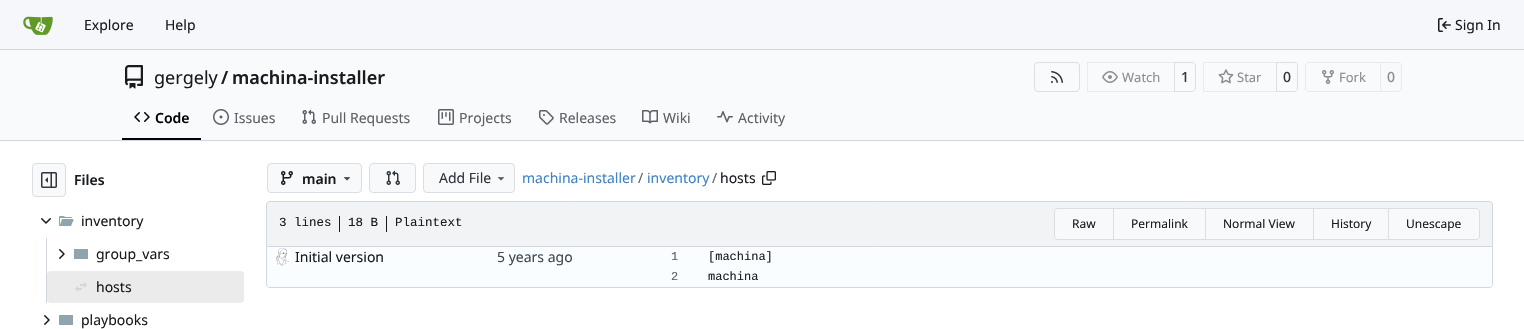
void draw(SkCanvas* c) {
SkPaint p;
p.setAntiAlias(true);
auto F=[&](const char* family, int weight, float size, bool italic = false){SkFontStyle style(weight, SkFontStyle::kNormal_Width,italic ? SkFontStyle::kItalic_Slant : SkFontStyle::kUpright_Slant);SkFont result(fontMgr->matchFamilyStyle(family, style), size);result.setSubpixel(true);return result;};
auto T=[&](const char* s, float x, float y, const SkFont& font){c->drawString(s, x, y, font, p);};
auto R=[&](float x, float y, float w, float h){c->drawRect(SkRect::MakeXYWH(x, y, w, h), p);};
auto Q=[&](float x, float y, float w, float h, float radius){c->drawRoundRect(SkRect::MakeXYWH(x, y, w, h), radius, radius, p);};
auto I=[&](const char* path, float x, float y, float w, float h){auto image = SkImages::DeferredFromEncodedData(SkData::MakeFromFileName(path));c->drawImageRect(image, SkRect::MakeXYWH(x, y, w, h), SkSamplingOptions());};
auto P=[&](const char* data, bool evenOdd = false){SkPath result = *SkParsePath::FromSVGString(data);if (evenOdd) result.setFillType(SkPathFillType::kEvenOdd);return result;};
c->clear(0xffffffff);
p.setColor(0xfff6f7fa);
R(0,0,1524,49);
p.setColor(0xffd0d7de);
R(0,49,1524,1);
I("1.png",23,16,30,19);
auto f1 = F("Noto Sans",400,14);
p.setColor(0xff181c21);
T("Explore",84,30,f1);
T("Help",165,30,f1);
I("2.png",1438,18,13,14);
T("Sign In",1455,30,f1);
p.setColor(0xfff9fafb);
R(0,50,1524,90);
I("3.png",125,65,18,24);
auto f2 = F("Noto Sans",400,18);
p.setColor(0xff181c21);
T("gergely",154,84,f2);
auto f3 = F("Noto Sans",600,18);
T("/",221,84,f3);
T("machina-installer",232,84,f3);
p.setStroke(true);
p.setStrokeWidth(1);
p.setColor(0xffdddee1);
c->drawRoundRect(SkRect::MakeXYWH(1034.5,62.5,45,29),3.5,3.5,p);
I("4.png",1051,71,12,12);
c->drawPath(P("M1174.5 62.5h17.5c2 0 3.5 1.5 3.5 3.5v22c0 2-1.5 3.5-3.5 3.5h-17.5z"),p);
p.setStroke(false);
p.setColor(0x8cf8f9fb);
c->drawPath(P("M1091 62h84v30h-84c-2 0-4-2-4-4v-22c0-2 2-4 4-4z"),p);
p.setStroke(true);
p.setColor(0x0f000017);
c->drawRect(SkRect::MakeXYWH(1087.5,62.5,87,29),p);
I("5.png",1102,71,16,12);
auto f4 = F("Noto Sans",400,13);
p.setStroke(false);
p.setColor(0xff8a8e91);
T("Watch",1122,82,f4);
auto f5 = F("Noto Sans",500,14);
p.setColor(0xff30363b);
T("1",1181,82,f5);
p.setStroke(true);
p.setColor(0xffdddee1);
c->drawPath(P("M1276.5 62.5h17.5c2 0 3.5 1.5 3.5 3.5v22c0 2-1.5 3.5-3.5 3.5h-17.5z"),p);
p.setStroke(false);
p.setColor(0x8cf8f9fb);
c->drawPath(P("M1207 62h70v30h-70c-2 0-4-2-4-4v-22c0-2 2-4 4-4z"),p);
p.setStroke(true);
p.setColor(0x0f000017);
c->drawRect(SkRect::MakeXYWH(1203.5,62.5,73,29),p);
I("6.png",1218,69,16,15);
p.setStroke(false);
p.setColor(0xff8a8e91);
T("Star",1237,82,f4);
p.setColor(0xff30363b);
T("0",1283,82,f5);
p.setStroke(true);
p.setColor(0xffe9eaed);
c->drawPath(P("M1309 62.5h71.5v29h-71.5c-2 0-3.5-1.5-3.5-3.5v-22c0-2 1.5-3.5 3.5-3.5z"),p);
I("7.png",1322,70,12,14);
p.setStroke(false);
p.setColor(0xff8a8e91);
T("Fork",1339,82,f4);
p.setColor(0xfff8f9fb);
c->drawPath(P("M1380.5 62.5h17.5c2 0 3.5 1.5 3.5 3.5v22c0 2-1.5 3.5-3.5 3.5h-17.5z"),p);
p.setStroke(true);
p.setColor(0xffe9eaed);
c->drawPath(P("M1380.5 62.5h17.5c2 0 3.5 1.5 3.5 3.5v22c0 2-1.5 3.5-3.5 3.5h-17.5z"),p);
p.setStroke(false);
p.setColor(0xff8a8e91);
T("0",1387,82,f5);
p.setColor(0xff01050a);
R(122,138,79,2);
I("8.png",134,112,16,10);
auto f6 = F("Noto Sans",600,14);
T("Code",155,123,f6);
I("9.png",213,109,16,16);
p.setColor(0xff5b6167);
T("Issues",234,123,f1);
I("10.png",302,109,14,15);
T("Pull Requests",322,123,f1);
I("11.png",438,109,16,16);
T("Projects",459,123,f1);
I("12.png",539,110,15,15);
T("Releases",559,123,f1);
I("13.png",642,110,16,14);
T("Wiki",663,123,f1);
I("14.png",717,111,16,12);
T("Activity",738,123,f1);
p.setColor(0xffd0d7de);
R(0,140,1524,1);
p.setColor(0xfff8f9fb);
c->drawRoundRect(SkRect::MakeXYWH(32.5,163.5,33,33),3.5,3.5,p);
p.setStroke(true);
p.setColor(0xffdcdde1);
c->drawRoundRect(SkRect::MakeXYWH(32.5,163.5,33,33),3.5,3.5,p);
I("15.png",41,172,16,16);
p.setStroke(false);
p.setColor(0xff181c21);
T("Files",74,185,f6);
I("16.png",41,218,10,6);
I("17.png",59,216,15,10);
T("inventory",81,226,f1);
p.setColor(0xffd0d7de);
R(46,238,1,65);
I("18.png",59,249,6,10);
p.setColor(0xff90a4ae);
R(74,249,14,10);
p.setColor(0xff181c21);
T("group_vars",96,259,f1);
p.setColor(0xffebebec);
Q(47,271,197,32,4);
I("19.png",75,282,12,10);
p.setColor(0xff181c21);
T("hosts",96,292,f1);
I("18.png",44,315,6,10);
p.setColor(0xff90a4ae);
R(59,315,14,10);
p.setColor(0xff181c21);
T("playbooks",81,325,f1);
p.setColor(0xfff8f9fb);
c->drawRoundRect(SkRect::MakeXYWH(267.5,163.5,94,29),3.5,3.5,p);
p.setStroke(true);
p.setColor(0xffdcdde1);
c->drawRoundRect(SkRect::MakeXYWH(267.5,163.5,94,29),3.5,3.5,p);
I("20.png",281,171,12,14);
p.setStroke(false);
p.setColor(0xff181c21);
T("main",302,184,f6);
I("21.png",343,177,8,4);
p.setColor(0xfff8f9fb);
c->drawRoundRect(SkRect::MakeXYWH(369.5,163.5,46,29),3.5,3.5,p);
p.setStroke(true);
p.setColor(0xffdcdde1);
c->drawRoundRect(SkRect::MakeXYWH(369.5,163.5,46,29),3.5,3.5,p);
I("22.png",386,170,14,15);
p.setStroke(false);
p.setColor(0xfff8f9fb);
c->drawRoundRect(SkRect::MakeXYWH(423.5,163.5,91,29),3.5,3.5,p);
p.setStroke(true);
p.setColor(0xffdcdde1);
c->drawRoundRect(SkRect::MakeXYWH(423.5,163.5,91,29),3.5,3.5,p);
p.setStroke(false);
p.setColor(0xff30363b);
T("Add File",439,183,f1);
I("23.png",497,177,8,4);
p.setColor(0xff4183c4);
T("machina-installer",522,183,f1);
p.setColor(0xff5b6167);
T("/",638,183,f1);
p.setColor(0xff4183c4);
T("inventory",647,183,f1);
p.setColor(0xff5b6167);
T("/",712,183,f1);
p.setColor(0xff181c21);
T("hosts",720,183,f1);
I("24.png",762,171,14,14);
p.setColor(0xfff1f3f5);
c->drawPath(P("M270 201.5h1219c2 0 3.5 1.5 3.5 3.5v41.5h-1226v-41.5c0-2 1.5-3.5 3.5-3.5z"),p);
p.setStroke(true);
p.setColor(0xffd0d7de);
c->drawPath(P("M270 201.5h1219c2 0 3.5 1.5 3.5 3.5v41.5h-1226v-41.5c0-2 1.5-3.5 3.5-3.5z"),p);
auto f7 = F("Liberation Mono",400,12.5);
p.setStroke(false);
p.setColor(0xff181c21);
T("3 lines",279,226,f7);
R(339,216,1,16);
T("18 B",348,226,f7);
R(386,216,1,16);
T("Plaintext",395,226,f7);
p.setColor(0xfff8f9fb);
c->drawPath(P("M1058 208h55v32h-55c-2 0-4-2-4-4v-24c0-2 2-4 4-4z"),p);
p.setColor(0xffdcdde1);
c->drawPath(P("M1058 208h55v32h-55c-2 0-4-2-4-4v-24c0-2 2-4 4-4zm0 1h55v30h-55c-2 0-3-1-3-3v-24c0-2 1-3 3-3z",true),p);
auto f8 = F("Noto Sans",400,12);
p.setColor(0xff181c21);
T("Raw",1072,228,f8);
p.setColor(0xfff8f9fb);
R(1113,208,275,32);
p.setColor(0xffdcdde1);
c->drawPath(P("M1113 208h92v1h-91z"),p);
c->drawPath(P("M1205 240h-92l1-1h91z"),p);
p.setColor(0x1c000017);
c->drawPath(P("M1113 240v-32l1 1v30z"),p);
p.setColor(0xff181c21);
T("Permalink",1131,228,f8);
p.setColor(0xffdcdde1);
c->drawPath(P("M1205 208h108v1h-107z"),p);
c->drawPath(P("M1313 240h-108l1-1h107z"),p);
p.setColor(0x1c000017);
c->drawPath(P("M1205 240v-32l1 1v30z"),p);
p.setColor(0xff181c21);
T("Normal View",1223,228,f8);
p.setColor(0xffdcdde1);
c->drawPath(P("M1313 208h75v1h-74z"),p);
c->drawPath(P("M1388 240h-75l1-1h74z"),p);
p.setColor(0x1c000017);
c->drawPath(P("M1313 240v-32l1 1v30z"),p);
p.setColor(0xff181c21);
T("History",1331,228,f8);
p.setColor(0xfff8f9fb);
c->drawPath(P("M1388.5 208.5h87.5c2 0 3.5 1.5 3.5 3.5v24c0 2-1.5 3.5-3.5 3.5h-87.5z"),p);
p.setStroke(true);
p.setColor(0xffdcdde1);
c->drawPath(P("M1388.5 208.5h87.5c2 0 3.5 1.5 3.5 3.5v24c0 2-1.5 3.5-3.5 3.5h-87.5z"),p);
p.setStroke(false);
p.setColor(0xff181c21);
T("Unescape",1406,228,f8);
p.setColor(0xffd0d7de);
c->drawPath(P("M266 247h1227v37c0 2-2 4-4 4h-1219c-2 0-4-2-4-4zm1 0h1225v37c0 2-1 3-3 3h-1219c-2 0-3-1-3-3z",true),p);
p.setColor(0xfffafdff);
Q(267,247,1225,40,4);
I("25.png",273,248,18,18);
p.setColor(0xff181c21);
T("Initial version",295,262,f1);
p.setColor(0xff40474d);
T("5 years ago",497,262,f1);
auto f9 = F("Liberation Mono",400,12);
p.setColor(0xff5b6167);
T("1",671,260,f9);
p.setColor(0xff181c21);
T("[machina]",708,260,f9);
p.setColor(0xff5b6167);
T("2",671,280,f9);
p.setColor(0xff181c21);
T("machina",708,280,f9);
}
